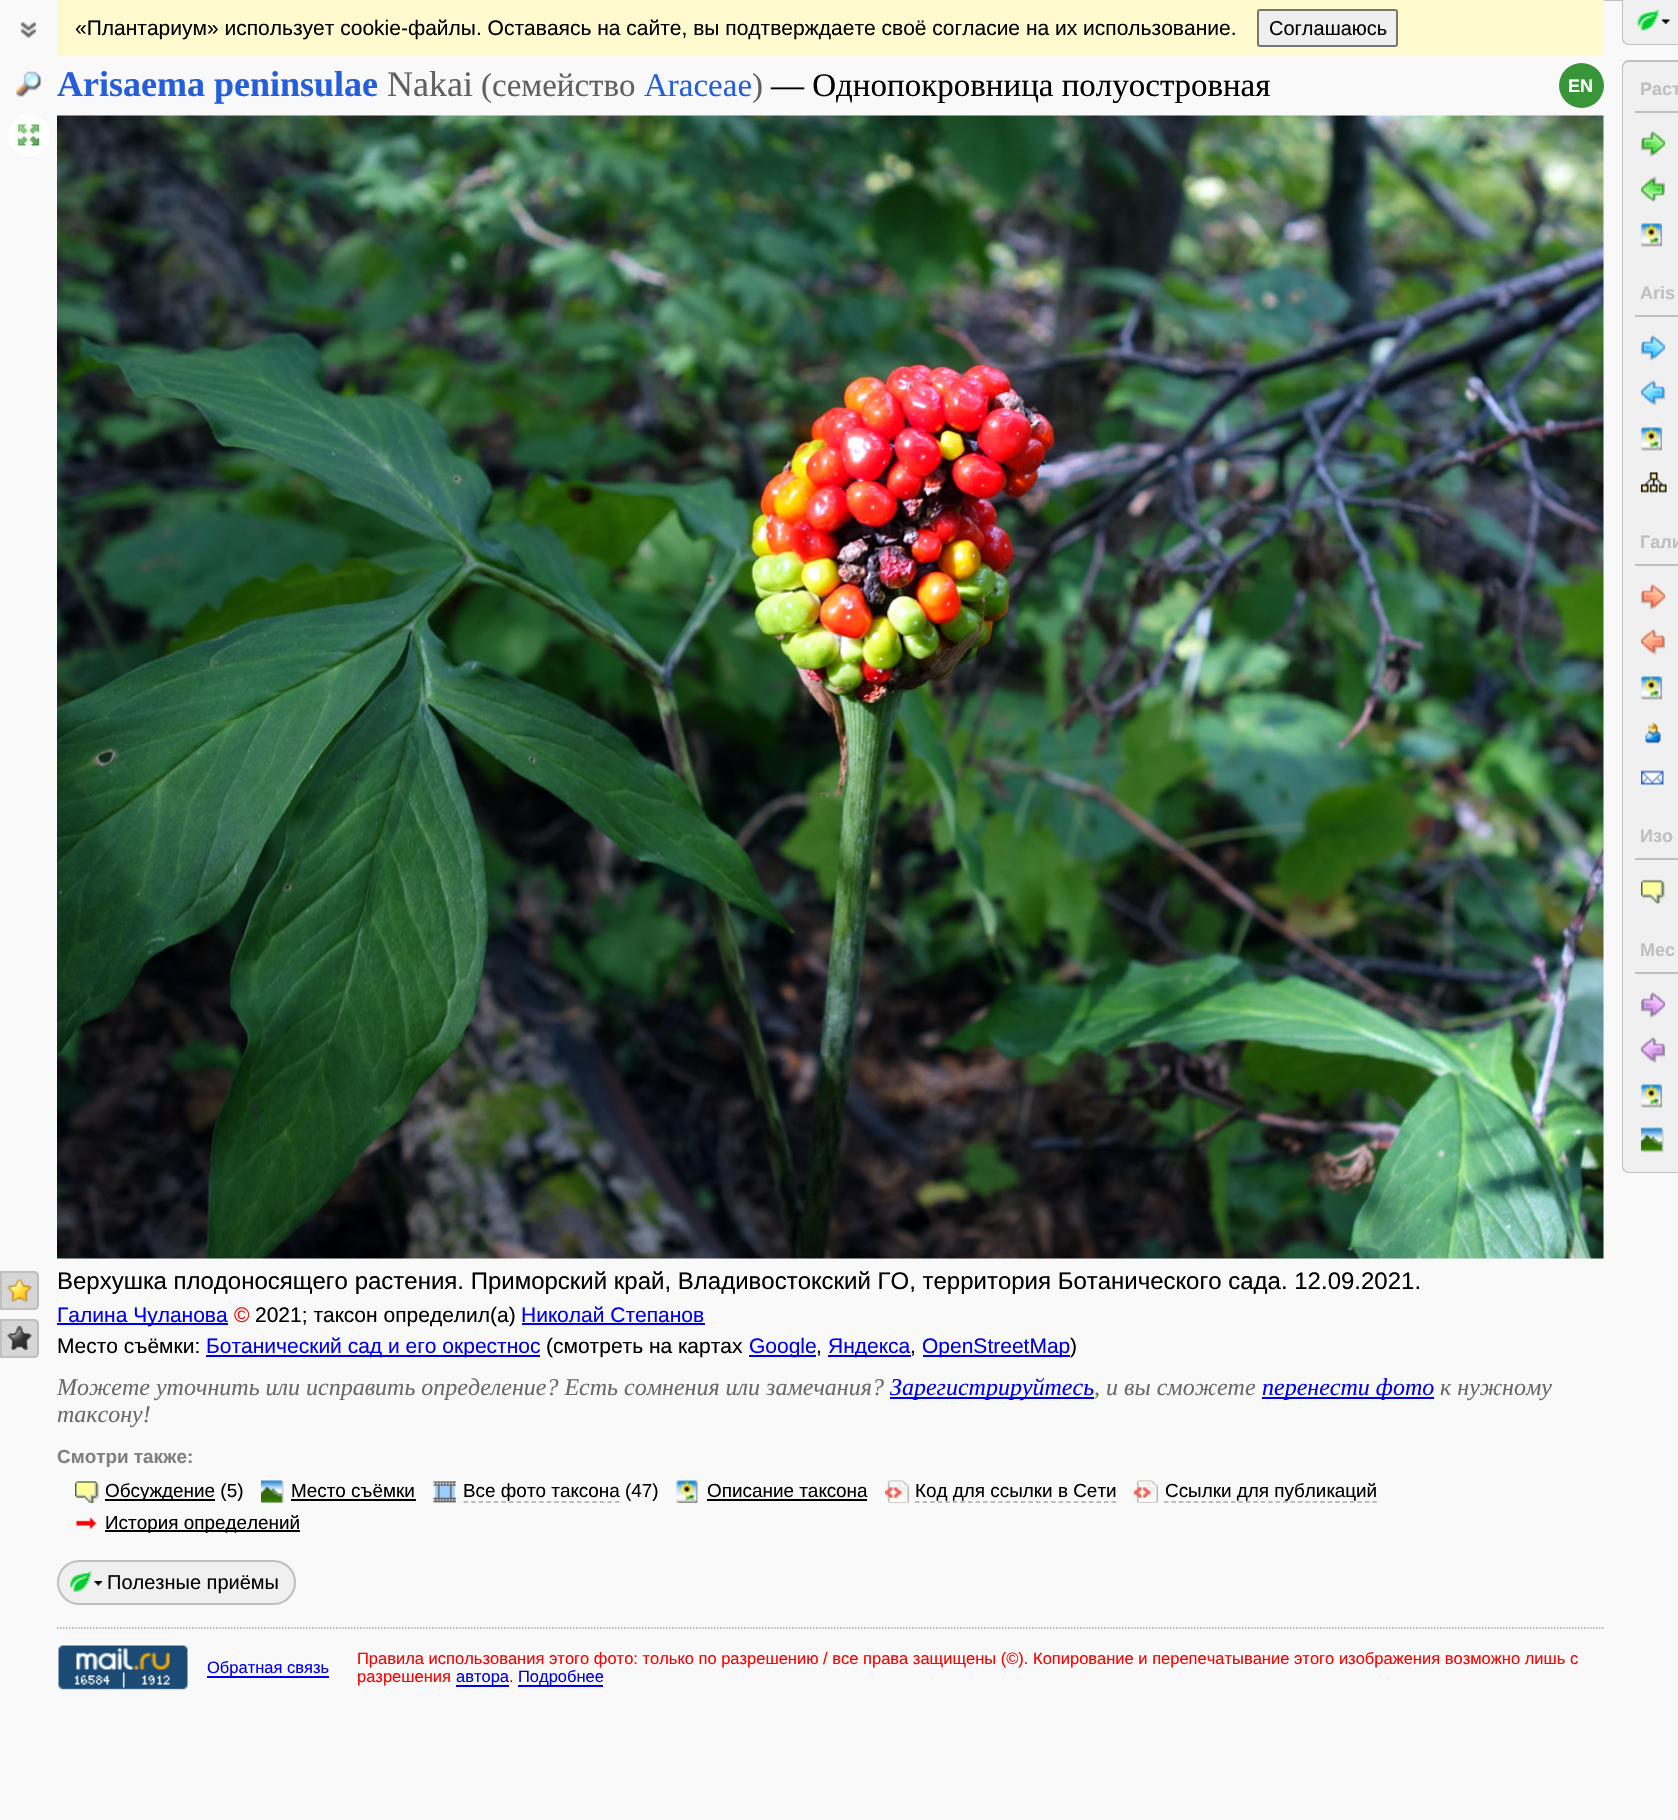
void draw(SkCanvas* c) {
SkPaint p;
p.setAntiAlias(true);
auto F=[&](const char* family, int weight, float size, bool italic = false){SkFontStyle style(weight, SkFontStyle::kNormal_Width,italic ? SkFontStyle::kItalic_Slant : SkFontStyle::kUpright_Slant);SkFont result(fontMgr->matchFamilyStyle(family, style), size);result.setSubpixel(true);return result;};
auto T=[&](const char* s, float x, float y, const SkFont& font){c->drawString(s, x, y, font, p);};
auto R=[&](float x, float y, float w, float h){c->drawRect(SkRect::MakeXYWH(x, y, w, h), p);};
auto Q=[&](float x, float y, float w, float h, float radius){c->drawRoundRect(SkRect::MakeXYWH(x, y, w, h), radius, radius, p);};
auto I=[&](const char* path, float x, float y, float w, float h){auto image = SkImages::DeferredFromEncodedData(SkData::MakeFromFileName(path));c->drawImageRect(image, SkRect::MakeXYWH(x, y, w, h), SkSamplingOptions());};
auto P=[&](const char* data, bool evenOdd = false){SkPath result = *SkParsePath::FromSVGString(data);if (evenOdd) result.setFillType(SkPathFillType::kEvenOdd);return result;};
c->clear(0xfff9f9f9);
I("1.png",21,22,15,16);
p.setColor(0xfffffacd);
R(57,0,1547,56);
auto f1 = F("Liberation Sans",400,21);
p.setColor(0xff000000);
T("«Плантариум» использует cookie-файлы. Оставаясь на сайте, вы подтверждаете своё согласие на их использование.",75,35,f1);
p.setColor(0xffefefef);
c->drawRoundRect(SkRect::MakeXYWH(1258,10,139,36),2,2,p);
p.setStroke(true);
p.setStrokeWidth(2);
p.setColor(0xff767676);
c->drawRoundRect(SkRect::MakeXYWH(1258,10,139,36),2,2,p);
auto f2 = F("Liberation Sans",400,20);
p.setStroke(false);
p.setColor(0xff000000);
T("Соглашаюсь",1269,35,f2);
I("2.png",16,71,25,26);
p.setColor(0xffffffff);
c->drawCircle(29,135,21,p);
I("3.png",17,124,23,22);
p.setColor(0xffd6d6d6);
c->drawPath(P("M0 1271h34c3 0 5 2 5 5v29c0 3-2 5-5 5h-34z"),p);
I("4.png",7,1279,25,23);
p.setStroke(true);
p.setColor(0xffc0c0c0);
c->drawPath(P("M1 1272h33c2 0 4 2 4 4v29c0 2-2 4-4 4h-33z"),p);
p.setStroke(false);
p.setColor(0xffd6d6d6);
c->drawPath(P("M0 1319h34c3 0 5 2 5 5v29c0 3-2 5-5 5h-34z"),p);
I("5.png",7,1326,25,24);
p.setStroke(true);
p.setColor(0xffc0c0c0);
c->drawPath(P("M1 1320h33c2 0 4 2 4 4v29c0 2-2 4-4 4h-33z"),p);
auto f3 = F("Liberation Serif",700,36);
p.setStroke(false);
p.setColor(0xff245edc);
T("Arisaema peninsulae",57,96,f3);
auto f4 = F("Liberation Serif",400,36);
p.setColor(0xff606060);
T("Nakai",387,96,f4);
auto f5 = F("Liberation Serif",400,33);
T("(семейство",481,96,f5);
p.setColor(0xff245edc);
T("Araceae",644,96,f5);
p.setColor(0xff606060);
T(")",752,96,f5);
p.setColor(0xff000000);
T("— Однопокровница полуостровная",771,96,f5);
p.setColor(0xff389638);
c->drawCircle(1581.5,85.5,22.5,p);
auto f6 = F("Liberation Sans",700,18);
p.setColor(0xfffefefe);
T("EN",1568,92,f6);
p.setColor(0xffc0c0c0);
R(1604,0,18,1);
p.setColor(0xfff0f0f0);
c->drawPath(P("M1622 0h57v45h-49c-4.5 0-8-3.5-8-8z"),p);
I("6.png",1637,8,23,23);
p.setColor(0xffc0c0c0);
c->drawPath(P("M1622 0h56v45h-49c-4 0-7-3-7-7zm1 0h55v44h-49c-3 0-6-3-6-6z",true),p);
I("7.png",1662,19,8,5);
p.setColor(0xfff0f0f0);
c->drawPath(P("M1630 60h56v1113h-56c-4.5 0-8-3.5-8-8v-1097c0-4.5 3.5-8 8-8z"),p);
p.setColor(0xffc0c0c0);
c->drawPath(P("M1629 60h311v1113h-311c-4 0-7-3-7-7v-1098c0-5 3-8 7-8zm0 2h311v1110h-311c-3 0-6-3-6-6v-1098c0-4 3-6 6-6z",true),p);
R(1635,111,43,2);
T("Раст",1640,95,f6);
I("8.png",1641,131,24,26);
I("9.png",1641,176,24,26);
I("10.png",1641,223,21,24);
R(1635,315,43,2);
T("Aris",1640,299,f6);
I("11.png",1641,335,24,26);
I("12.png",1641,380,24,26);
I("10.png",1641,427,21,24);
I("13.png",1641,472,26,21);
R(1635,564,43,2);
T("Гали",1640,548,f6);
I("14.png",1641,584,24,26);
I("15.png",1641,629,24,26);
I("10.png",1641,676,21,24);
I("16.png",1645,722,16,22);
I("17.png",1641,770,23,15);
R(1635,858,43,2);
T("Изо",1640,842,f6);
I("18.png",1641,879,24,25);
R(1635,972,43,2);
T("Мес",1640,956,f6);
I("19.png",1641,992,24,26);
I("20.png",1641,1037,24,26);
I("10.png",1641,1084,21,24);
I("21.png",1641,1127,23,26);
I("22.png",57,115,1547,1144);
auto f7 = F("Liberation Sans",400,24);
p.setColor(0xff000000);
T("Верхушка плодоносящего растения. Приморский край, Владивостокский ГО, территория Ботанического сада. 12.09.2021.",57,1289,f7);
p.setColor(0xff0000ee);
R(57,1323,171,2);
T("Галина Чуланова",57,1322,f1);
p.setColor(0xffff0000);
T("©",234,1322,f1);
p.setColor(0xff000000);
T("2021; таксон определил(а)",255,1322,f1);
p.setColor(0xff0000ee);
T("Николай Степанов",521,1322,f1);
R(522,1323,183,2);
p.setColor(0xff000000);
T("Место съёмки:",57,1353,f1);
p.setColor(0xff0000ee);
R(206,1355,334,2);
T("Ботанический сад и его окрестнос",206,1353,f1);
p.setColor(0xff000000);
T("(смотреть на картах",546,1353,f1);
p.setColor(0xff0000ee);
R(749,1355,67,2);
T("Google",749,1353,f1);
p.setColor(0xff000000);
T(",",816,1353,f1);
p.setColor(0xff0000ee);
R(828,1355,83,2);
T("Яндекса",828,1353,f1);
p.setColor(0xff000000);
T(",",910,1353,f1);
p.setColor(0xff0000ee);
R(923,1355,147,2);
T("OpenStreetMap",922,1353,f1);
p.setColor(0xff000000);
T(")",1070,1353,f1);
auto f8 = F("Liberation Serif",400,24,true);
p.setColor(0xff696969);
T("Можете уточнить или исправить определение? Есть сомнения или замечания?",57,1395,f8);
p.setColor(0xff0000ee);
R(890,1397,204,2);
T("Зарегистрируйтесь",890,1395,f8);
p.setColor(0xff696969);
T(", и вы сможете",1094,1395,f8);
p.setColor(0xff0000ee);
R(1262,1397,172,2);
T("перенести фото",1262,1395,f8);
p.setColor(0xff696969);
T("к нужному",1440,1395,f8);
T("таксону!",57,1422,f8);
auto f9 = F("Liberation Sans",700,18.9);
p.setColor(0xff808080);
T("Смотри также:",57,1463,f9);
I("23.png",75,1481,24,22);
p.setColor(0xff000000);
R(105,1499,110,2);
auto f10 = F("Liberation Sans",400,18.9);
T("Обсуждение (5)",105,1497,f10);
I("24.png",261,1480,23,23);
T("Место съёмки",291,1497,f10);
R(291,1499,125,2);
I("25.png",433,1481,23,22);
T("Все фото таксона (47)",463,1497,f10);
p.setStroke(true);
p.setStrokeWidth(1.5);
p.setColor(0xffa9a9a9);
p.setPathEffect(SkDashPathEffect::Make({{4.5f,3.07f}}, 0));
c->drawPath(P("M463.5 1502h156"),p);
p.setPathEffect(nullptr);
I("26.png",676,1480,22,23);
p.setStroke(false);
p.setColor(0xff000000);
T("Описание таксона",707,1497,f10);
R(707,1499,160,2);
I("27.png",885,1480,24,23);
T("Код для ссылки в Сети",915,1497,f10);
p.setStroke(true);
p.setColor(0xffa9a9a9);
p.setPathEffect(SkDashPathEffect::Make({{4.5f,3.06f}}, 0));
c->drawPath(P("M915 1502h201"),p);
p.setPathEffect(nullptr);
I("28.png",1134,1480,24,23);
p.setStroke(false);
p.setColor(0xff000000);
T("Ссылки для публикаций",1165,1497,f10);
p.setStroke(true);
p.setColor(0xffa9a9a9);
p.setPathEffect(SkDashPathEffect::Make({{4.5f,2.94f}}, 0));
c->drawPath(P("M1164 1502h213"),p);
p.setPathEffect(nullptr);
I("29.png",76,1517,21,12);
p.setStroke(false);
p.setColor(0xff000000);
R(105,1530,195,2);
T("История определений",105,1529,f10);
p.setColor(0xfff0f0f0);
Q(57,1560,239,45,22.5);
I("30.png",94,1581,8,5);
p.setStroke(true);
p.setStrokeWidth(2);
p.setColor(0xffc0c0c0);
c->drawRoundRect(SkRect::MakeXYWH(58,1561,237,43),21.5,21.5,p);
I("31.png",70,1570,22,22);
p.setStroke(false);
p.setColor(0xff000000);
T("Полезные приёмы",107,1589,f2);
p.setStroke(true);
p.setStrokeWidth(1.5);
p.setColor(0xffa6a6a6);
p.setPathEffect(SkDashPathEffect::Make({{1.5f,1.5f}}, 0));
c->drawPath(P("M57 1628h1546.5"),p);
p.setPathEffect(nullptr);
I("32.png",57,1644,132,46);
p.setStroke(false);
p.setColor(0xff0000ee);
R(207,1676,122,2);
auto f11 = F("Liberation Sans",400,16.5);
T("Обратная связь",207,1673,f11);
p.setColor(0xffff0000);
T("Правила использования этого фото: только по разрешению / все права защищены (©). Копирование и перепечатывание этого изображения возможно лишь с",357,1664,f11);
T("разрешения",357,1682,f11);
p.setColor(0xff0000ee);
R(456,1685,53,2);
T("автора",456,1682,f11);
p.setColor(0xffff0000);
T(".",509,1682,f11);
p.setColor(0xff0000ee);
R(518,1685,85,2);
T("Подробнее",518,1682,f11);
}
